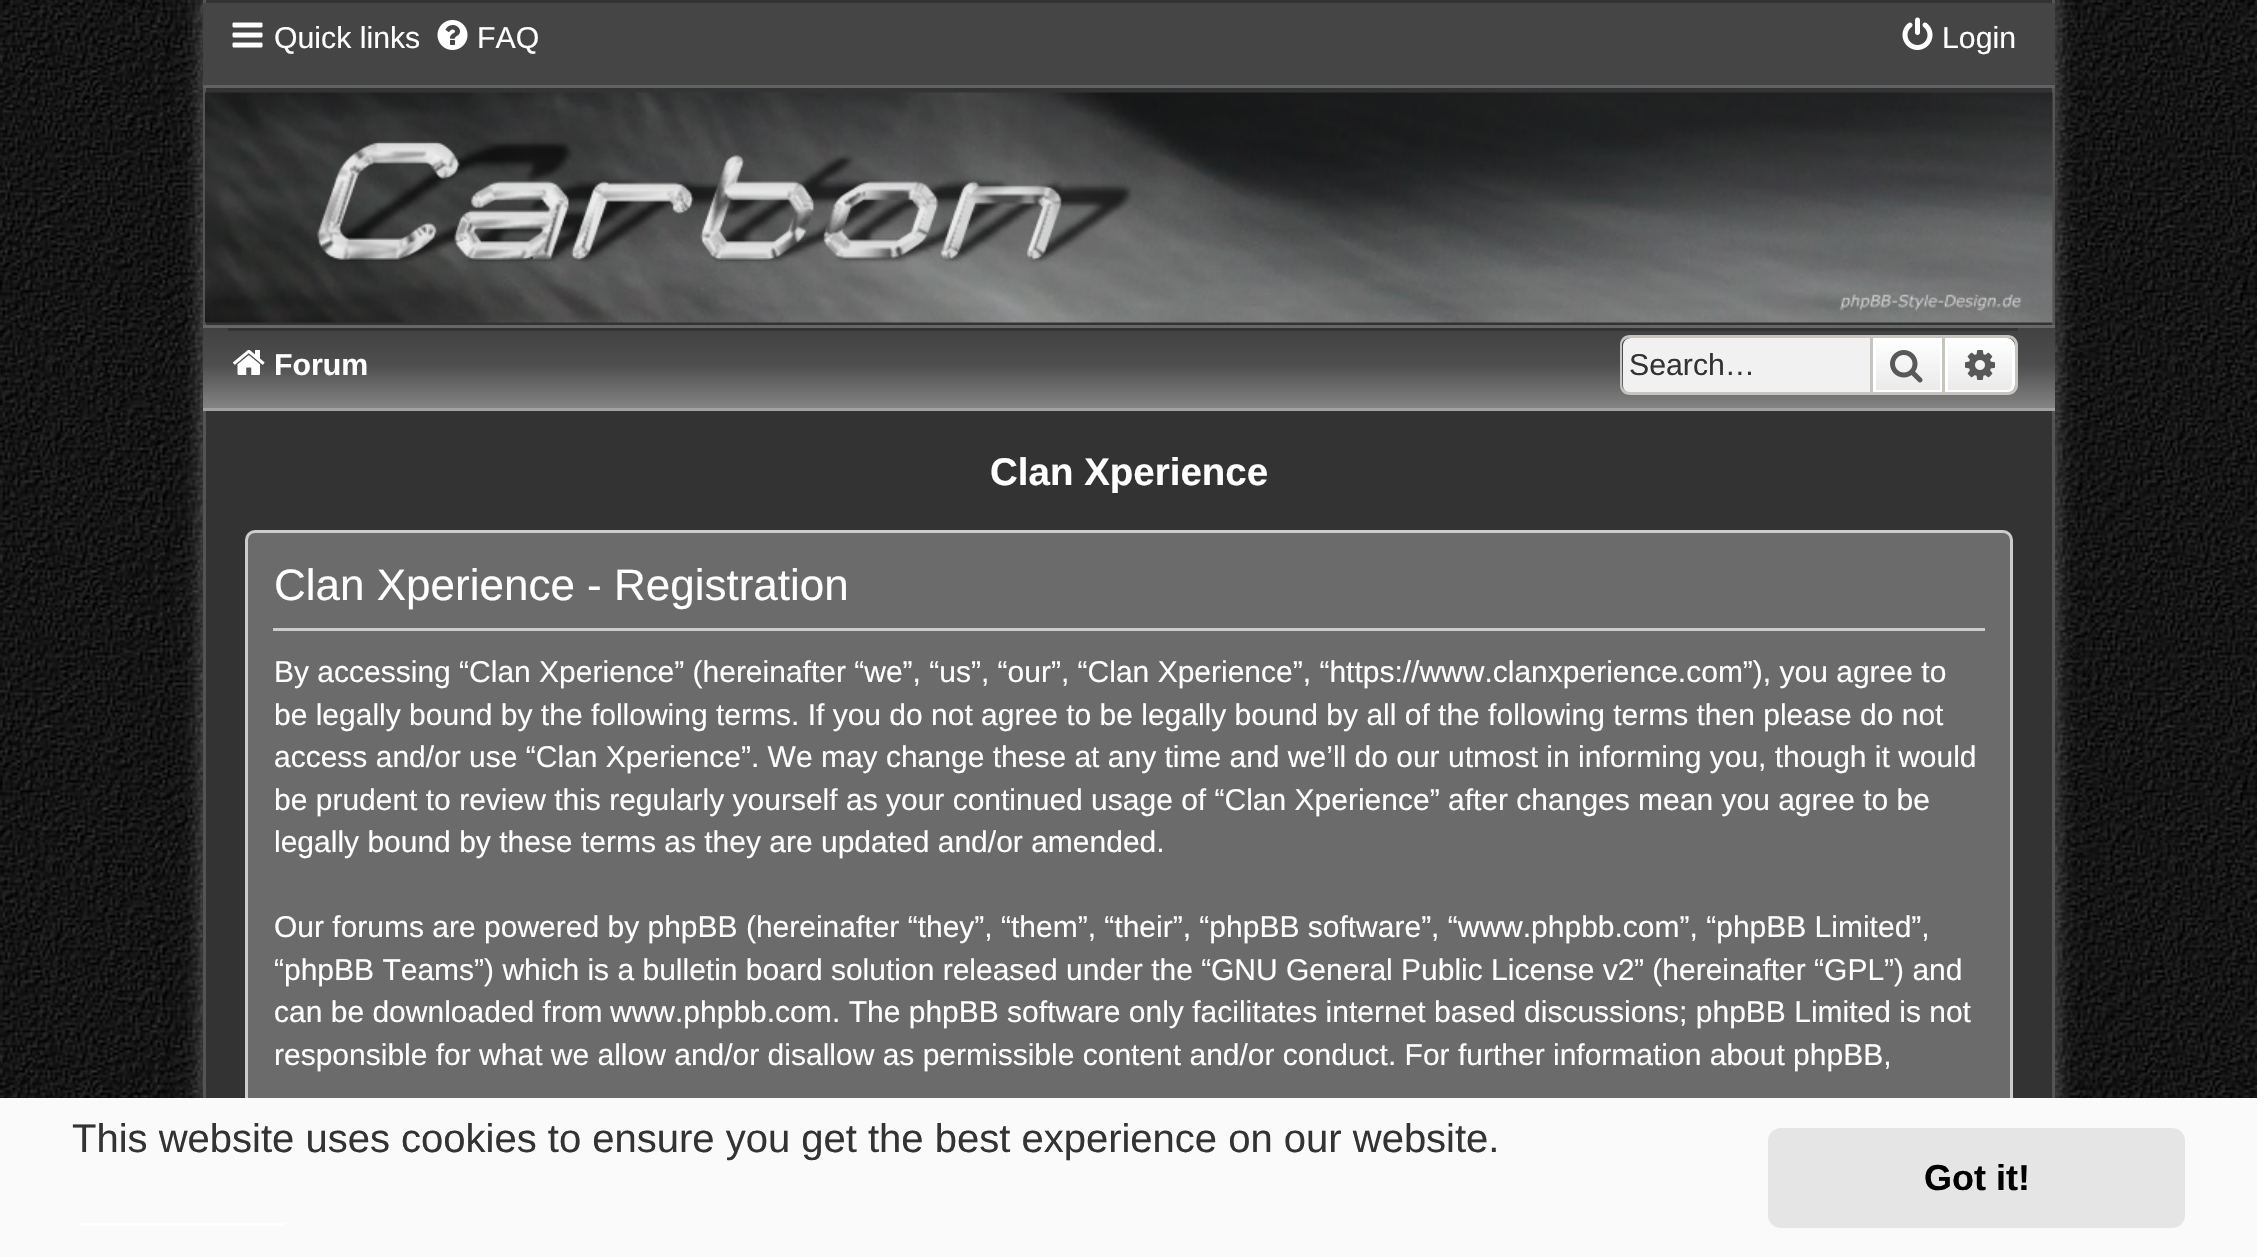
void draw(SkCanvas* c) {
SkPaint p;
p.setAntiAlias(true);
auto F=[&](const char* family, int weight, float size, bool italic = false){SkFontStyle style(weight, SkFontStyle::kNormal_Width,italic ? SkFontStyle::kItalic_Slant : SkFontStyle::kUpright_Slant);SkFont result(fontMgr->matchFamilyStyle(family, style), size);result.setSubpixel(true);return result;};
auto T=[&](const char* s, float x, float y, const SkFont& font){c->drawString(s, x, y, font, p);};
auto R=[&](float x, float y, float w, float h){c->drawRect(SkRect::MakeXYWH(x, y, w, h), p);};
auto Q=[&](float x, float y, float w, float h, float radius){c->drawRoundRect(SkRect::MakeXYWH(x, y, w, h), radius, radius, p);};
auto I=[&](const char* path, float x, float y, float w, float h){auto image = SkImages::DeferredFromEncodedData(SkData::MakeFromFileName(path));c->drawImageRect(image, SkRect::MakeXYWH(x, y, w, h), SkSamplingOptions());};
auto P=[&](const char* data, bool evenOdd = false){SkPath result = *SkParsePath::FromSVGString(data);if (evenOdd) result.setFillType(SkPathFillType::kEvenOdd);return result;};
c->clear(0xffffffff);
I("1.png",0,0,2257,1098);
p.setColor(0x33ffffff);
p.setMaskFilter(SkMaskFilter::MakeBlur(kNormal_SkBlurStyle, 7.5));
c->drawRoundRect(SkRect::MakeXYWH(198,-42,1862,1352),30,30,p);
p.setMaskFilter(nullptr);
p.setColor(0xff333333);
R(206,0,1846,1098);
p.setStroke(true);
p.setStrokeWidth(3);
p.setColor(0xff535453);
c->drawRect(SkRect::MakeXYWH(204.5,-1.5,1849,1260),p);
p.setStroke(false);
p.setColor(0xff454545);
R(203,3,1852,82);
I("2.png",232,22,31,26);
auto f1 = F("Liberation Sans",400,30.25);
p.setColor(0xffffffff);
T("Quick links",274,48,f1);
I("3.png",437,20,31,30);
T("FAQ",477,48,f1);
I("4.png",1902,17,31,33);
T("Login",1942,48,f1);
p.setColor(0xff616161);
R(203,85,1852,3);
I("5.png",205,92,1848,231);
{
const SkColor colors[] = {0xff414141,0xff4e4e4e,0xff878787,0xfffafafa};
const float stops[] = {0,.3,.67,1};
const SkPoint ends[] = {{1129,327}, {1129,452}};
p.setShader(SkGradientShader::MakeLinear(ends, colors, stops, 4, SkTileMode::kClamp));
p.setAlpha(255);
}
R(203,328,1852,80);
p.setShader(nullptr);
p.setColor(0xff666766);
R(203,325,1852,3);
p.setColor(0xffa1a2a1);
R(203,408,1852,3);
p.setColor(0xff333333);
R(228,328,1790,3);
I("6.png",233,349,32,26);
auto f2 = F("Liberation Sans",700,30.25);
p.setColor(0xffffffff);
T("Forum",274,375,f2);
p.setColor(0xfff1f1f1);
c->drawPath(P("M1631 338h239v55h-239c-4.5 0-8-3.5-8-8v-39c0-4.5 3.5-8 8-8z"),p);
p.setColor(0xffc7c3bf);
c->drawPath(P("M1630 335h240v60h-240c-6 0-10-4-10-10v-40c0-6 4-10 10-10zm0 3h240v54h-240c-4 0-8-3-8-7v-40c0-4 4-7 8-7z",true),p);
p.setColor(0xff333333);
T("Search…",1629,375,f1);
{
const SkColor colors[] = {0xffffffff,0xffe9e9e9};
const float stops[] = {0,1};
const SkPoint ends[] = {{1908,338}, {1908,393}};
p.setShader(SkGradientShader::MakeLinear(ends, colors, stops, 2, SkTileMode::kClamp));
p.setAlpha(255);
}
R(1876,341,64,49);
p.setStroke(true);
p.setShader(nullptr);
p.setColor(0xffffffff);
c->drawRect(SkRect::MakeXYWH(1874.5,339.5,67,52),p);
p.setColor(0xffc7c3bf);
c->drawRect(SkRect::MakeXYWH(1871.5,336.5,72,57),p);
I("7.png",1890,350,33,33);
p.setStroke(false);
{
const SkColor colors[] = {0xffffffff,0xffe9e9e9};
const float stops[] = {0,1};
const SkPoint ends[] = {{1980,338}, {1980,393}};
p.setShader(SkGradientShader::MakeLinear(ends, colors, stops, 2, SkTileMode::kClamp));
p.setAlpha(255);
}
c->drawPath(P("M1946.5 339.5h60.5c3.5 0 6.5 3 6.5 6.5v39c0 3.5-3 6.5-6.5 6.5h-60.5z"),p);
p.setStroke(true);
p.setShader(nullptr);
p.setColor(0xffffffff);
c->drawPath(P("M1946.5 339.5h60.5c3.5 0 6.5 3 6.5 6.5v39c0 3.5-3 6.5-6.5 6.5h-60.5z"),p);
p.setStroke(false);
p.setColor(0xffc7c3bf);
c->drawPath(P("M1945 335h63c5 0 10 4 10 10v40c0 6-5 10-10 10h-63zm0 3h63c4 0 7 3 7 7v40c0 4-3 7-7 7h-63z",true),p);
I("8.png",1965,350,30,30);
auto f3 = F("Liberation Sans",700,38.5);
p.setColor(0xffffffff);
T("Clan Xperience",990,485,f3);
p.setColor(0xff6b6b6b);
c->drawRoundRect(SkRect::MakeXYWH(246.5,531.5,1765,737),8.5,8.5,p);
p.setStroke(true);
p.setColor(0xffcccccc);
c->drawRoundRect(SkRect::MakeXYWH(246.5,531.5,1765,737),8.5,8.5,p);
p.setStroke(false);
R(273,628,1712,3);
auto f4 = F("Liberation Sans",400,44);
p.setColor(0xffffffff);
T("Clan Xperience - Registration",274,600,f4);
auto f5 = F("Liberation Sans",400,30);
T("By accessing “Clan Xperience” (hereinafter “we”, “us”, “our”, “Clan Xperience”, “https://www.clanxperience.com”), you agree to",274,682,f5);
T("be legally bound by the following terms. If you do not agree to be legally bound by all of the following terms then please do not",274,725,f5);
T("access and/or use “Clan Xperience”. We may change these at any time and we’ll do our utmost in informing you, though it would",274,767,f5);
T("be prudent to review this regularly yourself as your continued usage of “Clan Xperience” after changes mean you agree to be",274,810,f5);
T("legally bound by these terms as they are updated and/or amended.",274,852,f5);
T("Our forums are powered by phpBB (hereinafter “they”, “them”, “their”, “phpBB software”, “www.phpbb.com”, “phpBB Limited”,",274,937,f5);
T("“phpBB Teams”) which is a bulletin board solution released under the “",274,980,f5);
T("GNU General Public License v2",1211,980,f5);
T("” (hereinafter “GPL”) and",1634,980,f5);
T("can be downloaded from",274,1022,f5);
T("www.phpbb.com",610,1022,f5);
T(". The phpBB software only facilitates internet based discussions; phpBB Limited is not",832,1022,f5);
T("responsible for what we allow and/or disallow as permissible content and/or conduct. For further information about phpBB,",274,1065,f5);
p.setColor(0xfffafafa);
R(0,1098,2257,159);
auto f6 = F("Liberation Sans",400,40);
p.setColor(0xff333333);
T("This website uses cookies to ensure you get the best experience on our website.",72,1152,f6);
p.setColor(0xfffefefe);
R(80,1223,205,3);
p.setColor(0xffe5e5e5);
Q(1768,1128,417,100,13);
auto f7 = F("Liberation Sans",700,36);
p.setColor(0xff000000);
T("Got it!",1924,1190,f7);
}
